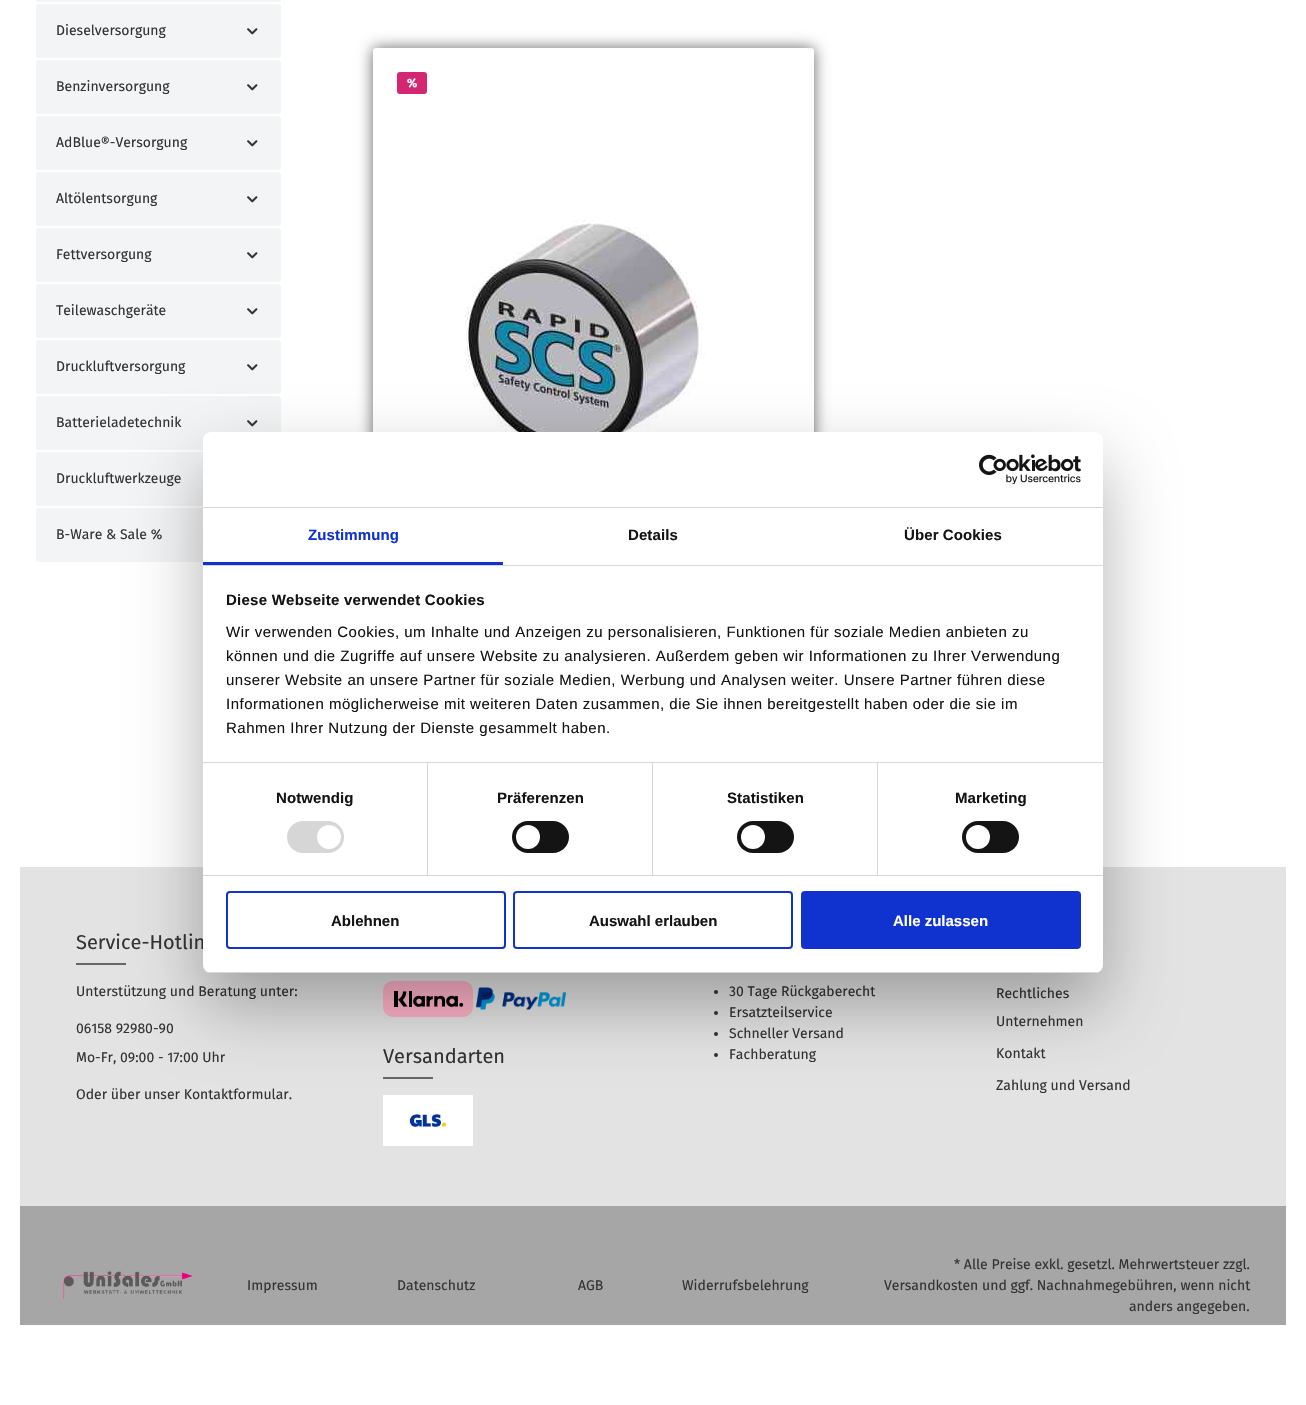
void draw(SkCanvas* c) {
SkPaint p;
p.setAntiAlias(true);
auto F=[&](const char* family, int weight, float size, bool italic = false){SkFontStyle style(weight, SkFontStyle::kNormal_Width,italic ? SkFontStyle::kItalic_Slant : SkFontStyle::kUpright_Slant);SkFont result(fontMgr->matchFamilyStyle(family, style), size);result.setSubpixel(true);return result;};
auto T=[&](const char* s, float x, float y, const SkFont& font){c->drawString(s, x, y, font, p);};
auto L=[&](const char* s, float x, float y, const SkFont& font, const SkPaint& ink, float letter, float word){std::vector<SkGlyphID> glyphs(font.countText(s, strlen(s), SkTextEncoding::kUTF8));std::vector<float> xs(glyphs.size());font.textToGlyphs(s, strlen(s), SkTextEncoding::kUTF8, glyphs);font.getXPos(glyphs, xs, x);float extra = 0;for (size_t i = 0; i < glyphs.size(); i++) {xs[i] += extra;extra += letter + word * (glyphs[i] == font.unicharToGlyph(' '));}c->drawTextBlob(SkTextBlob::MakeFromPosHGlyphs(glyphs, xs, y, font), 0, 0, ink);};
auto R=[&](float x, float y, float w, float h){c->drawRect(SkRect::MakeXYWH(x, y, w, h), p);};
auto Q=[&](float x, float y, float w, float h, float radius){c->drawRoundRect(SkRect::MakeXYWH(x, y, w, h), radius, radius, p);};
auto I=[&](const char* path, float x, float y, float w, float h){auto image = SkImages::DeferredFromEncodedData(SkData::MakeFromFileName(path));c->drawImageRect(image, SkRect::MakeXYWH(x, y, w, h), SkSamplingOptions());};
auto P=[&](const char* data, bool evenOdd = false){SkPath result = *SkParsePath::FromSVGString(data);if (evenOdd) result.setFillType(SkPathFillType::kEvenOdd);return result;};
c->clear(0xffffffff);
p.setColor(0xfff3f4f5);
Q(36,-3,245,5,3);
Q(36,4,245,54,3);
auto f1 = F("Fira Sans",400,14);
p.setColor(0xff333333);
T("Dieselversorgung",56,35,f1);
I("1.png",247,28,11,7);
p.setColor(0xfff3f4f5);
Q(36,60,245,54,3);
p.setColor(0xff333333);
T("Benzinversorgung",56,91,f1);
I("1.png",247,84,11,7);
p.setColor(0xfff3f4f5);
Q(36,116,245,54,3);
p.setColor(0xff333333);
T("AdBlue®-Versorgung",56,147,f1);
I("1.png",247,140,11,7);
p.setColor(0xfff3f4f5);
Q(36,172,245,54,3);
p.setColor(0xff333333);
T("Altölentsorgung",56,203,f1);
I("1.png",247,196,11,7);
p.setColor(0xfff3f4f5);
Q(36,228,245,54,3);
p.setColor(0xff333333);
T("Fettversorgung",56,259,f1);
I("1.png",247,252,11,7);
p.setColor(0xfff3f4f5);
Q(36,284,245,54,3);
p.setColor(0xff333333);
T("Teilewaschgeräte",56,315,f1);
I("1.png",247,308,11,7);
p.setColor(0xfff3f4f5);
Q(36,340,245,54,3);
p.setColor(0xff333333);
T("Druckluftversorgung",56,371,f1);
I("1.png",247,364,11,7);
p.setColor(0xfff3f4f5);
Q(36,396,245,54,3);
p.setColor(0xff333333);
T("Batterieladetechnik",56,427,f1);
I("1.png",247,420,11,7);
p.setColor(0xfff3f4f5);
Q(36,452,245,54,3);
p.setColor(0xff333333);
T("Druckluftwerkzeuge",56,483,f1);
p.setColor(0xfff3f4f5);
Q(36,508,245,54,3);
p.setColor(0xff333333);
T("B-Ware & Sale %",56,539,f1);
p.setColor(0xff666666);
p.setMaskFilter(SkMaskFilter::MakeBlur(kNormal_SkBlurStyle, 7.5));
c->drawRoundRect(SkRect::MakeXYWH(373,48,441,788),3,3,p);
p.setMaskFilter(nullptr);
p.setColor(0xffffffff);
Q(373,48,441,788,3);
p.setColor(0xffd42772);
Q(397,72,30,22,3);
auto f2 = F("Fira Sans",700,12);
p.setColor(0xffffffff);
T("%",407,87,f2);
I("2.png",465,219,240,213);
p.setColor(0xffe3e3e3);
R(20,867,1266,339);
auto f3 = F("Fira Sans",400,20);
p.setColor(0xff333333);
T("Service-Hotlin",76,949,f3);
p.setColor(0xff666666);
R(76,963,50,2);
p.setColor(0xff333333);
T("Unterstützung und Beratung unter:",76,996,f1);
T("06158 92980-90",76,1033,f1);
T("Mo-Fr, 09:00 - 17:00 Uhr",76,1062,f1);
T("Oder über unser Kontaktformular.",76,1099,f1);
I("3.png",383,981,90,36);
I("4.png",476,987,90,23);
T("Versandarten",383,1063,f3);
p.setColor(0xff666666);
R(383,1077,50,2);
I("5.png",383,1095,90,51);
p.setColor(0xff333333);
c->drawCircle(716,992,2,p);
T("30 Tage Rückgaberecht",729,996,f1);
c->drawCircle(716,1013,2,p);
T("Ersatzteilservice",729,1017,f1);
c->drawCircle(716,1034,2,p);
T("Schneller Versand",729,1038,f1);
c->drawCircle(716,1055,2,p);
T("Fachberatung",729,1059,f1);
T("Rechtliches",996,998,f1);
T("Unternehmen",996,1026,f1);
T("Kontakt",996,1058,f1);
T("Zahlung und Versand",996,1090,f1);
p.setColor(0xffa6a6a6);
R(20,1206,1266,119);
I("6.png",63,1271,130,28);
p.setColor(0xff333333);
T("Impressum",247,1290,f1);
T("Datenschutz",397,1290,f1);
T("AGB",578,1290,f1);
T("Widerrufsbelehrung",682,1290,f1);
T("* Alle Preise exkl. gesetzl. Mehrwertsteuer zzgl.",954,1269,f1);
T("Versandkosten und ggf. Nachnahmegebühren, wenn nicht",884,1290,f1);
T("anders angegeben.",1129,1311,f1);
p.setColor(0x4d000000);
p.setMaskFilter(SkMaskFilter::MakeBlur(kNormal_SkBlurStyle, 34));
c->drawRoundRect(SkRect::MakeXYWH(203,464,900,541),8,8,p);
p.setMaskFilter(nullptr);
p.setColor(0xffffffff);
Q(203,432,900,541,8);
p.setColor(0xffd6d6d6);
R(203,507,900,1);
I("7.png",979,454,102,30);
R(203,565,900,1);
p.setColor(0xff1032cf);
R(203,562,300,3);
auto f4 = F("Liberation Sans",700,15);
L("Zustimmung",308,540,f4,p,.1,0);
p.setColor(0xff141414);
L("Details",628,540,f4,p,.1,0);
L("Über Cookies",904,540,f4,p,.1,0);
p.setColor(0xffd6d6d6);
R(203,762,900,1);
p.setColor(0xff141414);
L("Diese Webseite verwendet Cookies",226,605,f4,p,.25,0);
auto f5 = F("Liberation Sans",400,15);
L("Wir verwenden Cookies, um Inhalte und Anzeigen zu personalisieren, Funktionen für soziale Medien anbieten zu",226,637,f5,p,.5,0);
L("können und die Zugriffe auf unsere Website zu analysieren. Außerdem geben wir Informationen zu Ihrer Verwendung",226,661,f5,p,.5,0);
L("unserer Website an unsere Partner für soziale Medien, Werbung und Analysen weiter. Unsere Partner führen diese",226,685,f5,p,.5,0);
L("Informationen möglicherweise mit weiteren Daten zusammen, die Sie ihnen bereitgestellt haben oder die sie im",226,709,f5,p,.5,0);
L("Rahmen Ihrer Nutzung der Dienste gesammelt haben.",226,733,f5,p,.5,0);
p.setColor(0xffd6d6d6);
R(203,875,900,1);
R(427,763,1,112);
p.setColor(0xff141414);
L("Notwendig",276,803,f4,p,.1,0);
p.setColor(0xffd6d6d6);
Q(287,821,57,32,16);
p.setColor(0xffffffff);
c->drawCircle(329,837,12,p);
p.setColor(0xffd6d6d6);
R(652,763,1,112);
p.setColor(0xff141414);
L("Präferenzen",497,803,f4,p,.1,0);
Q(512,821,57,32,16);
p.setColor(0xffffffff);
c->drawCircle(528,837,12,p);
p.setColor(0xffd6d6d6);
R(877,763,1,112);
p.setColor(0xff141414);
L("Statistiken",727,803,f4,p,.1,0);
Q(737,821,57,32,16);
p.setColor(0xffffffff);
c->drawCircle(753,837,12,p);
p.setColor(0xff141414);
L("Marketing",955,803,f4,p,.1,0);
Q(962,821,57,32,16);
p.setColor(0xffffffff);
c->drawCircle(978,837,12,p);
c->save();
c->clipPath(P("M211 432h884c4.5 0 8 3.5 8 8v525c0 4.5-3.5 8-8 8h-884c-4.5 0-8-3.5-8-8v-525c0-4.5 3.5-8 8-8z"),true);
p.setColor(0xffd6d6d6);
R(203,972,900,1);
c->restore();
p.setStroke(true);
p.setStrokeWidth(2);
p.setColor(0xff1032cf);
c->drawRoundRect(SkRect::MakeXYWH(227,892,278,56),3,3,p);
p.setStroke(false);
p.setColor(0xff141414);
T("Ablehnen",331,926,f4);
p.setStroke(true);
p.setColor(0xff1032cf);
c->drawRoundRect(SkRect::MakeXYWH(514,892,278,56),3,3,p);
p.setStroke(false);
p.setColor(0xff141414);
T("Auswahl erlauben",589,926,f4);
p.setColor(0xff1032cf);
c->drawRoundRect(SkRect::MakeXYWH(802,892,278,56),3,3,p);
p.setStroke(true);
c->drawRoundRect(SkRect::MakeXYWH(802,892,278,56),3,3,p);
p.setStroke(false);
p.setColor(0xffffffff);
T("Alle zulassen",893,926,f4);
}
